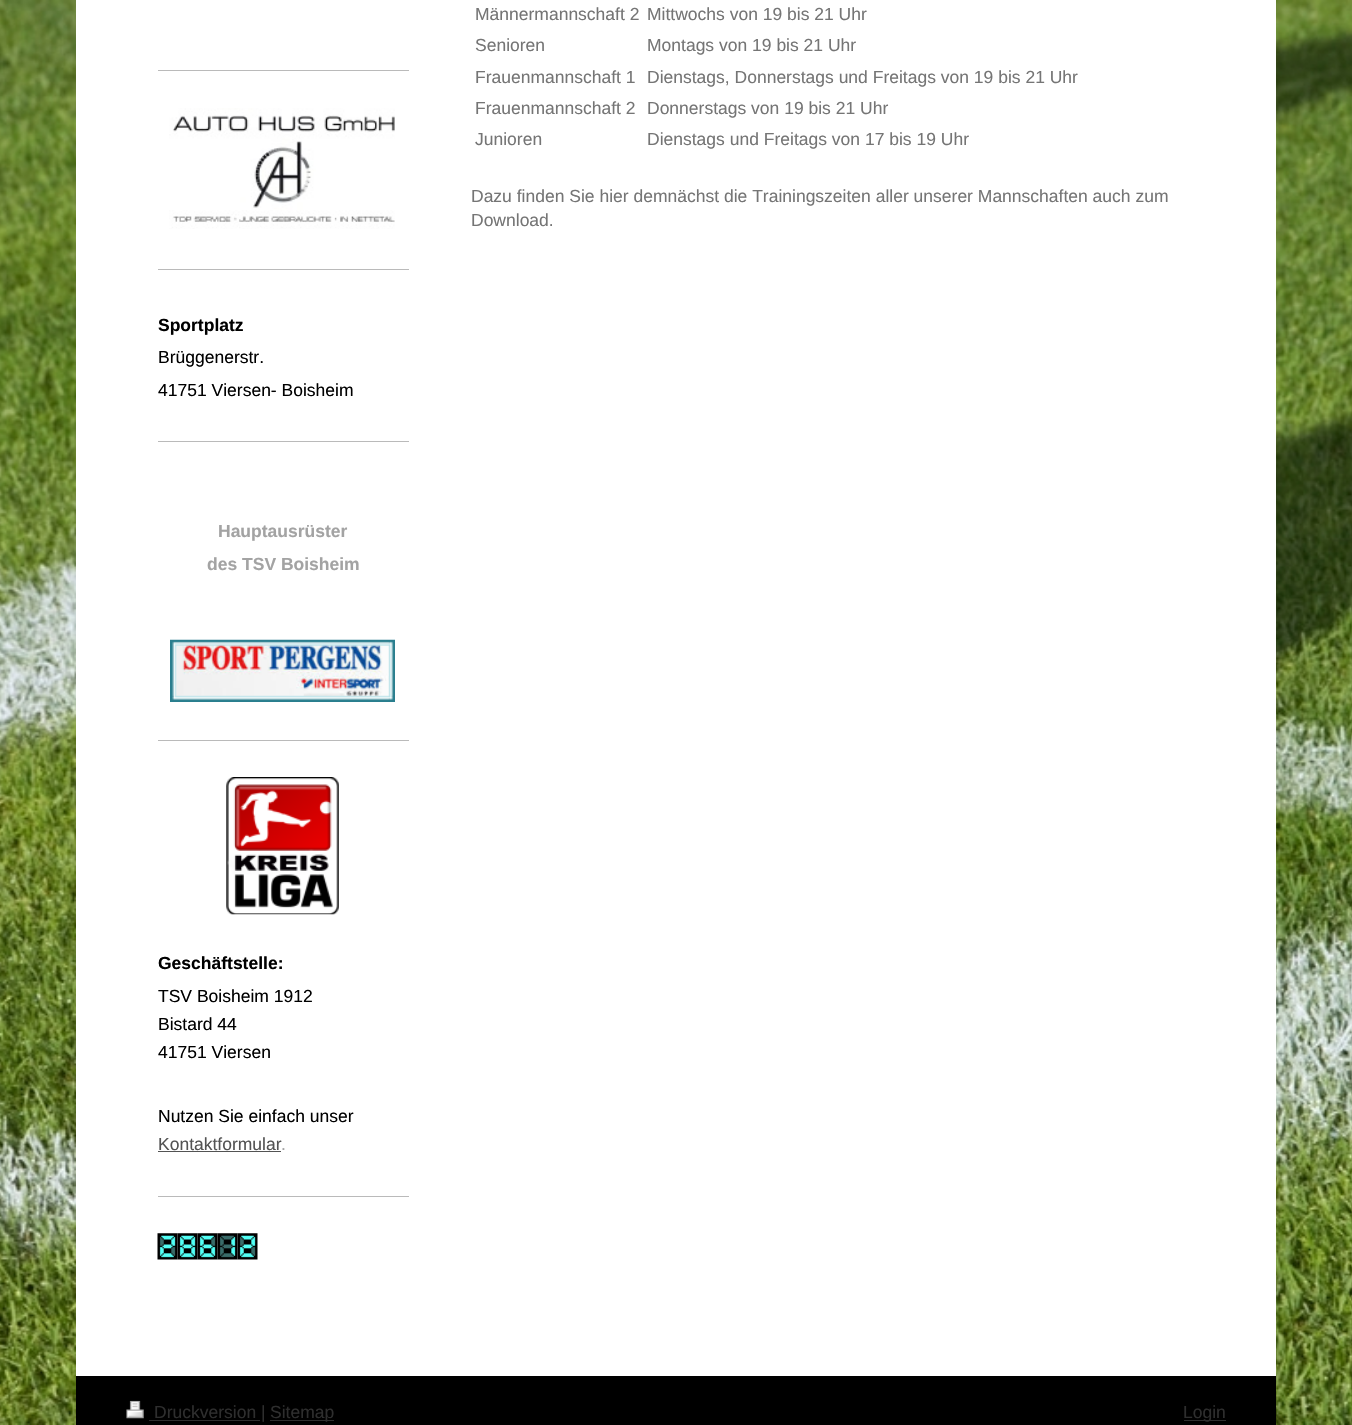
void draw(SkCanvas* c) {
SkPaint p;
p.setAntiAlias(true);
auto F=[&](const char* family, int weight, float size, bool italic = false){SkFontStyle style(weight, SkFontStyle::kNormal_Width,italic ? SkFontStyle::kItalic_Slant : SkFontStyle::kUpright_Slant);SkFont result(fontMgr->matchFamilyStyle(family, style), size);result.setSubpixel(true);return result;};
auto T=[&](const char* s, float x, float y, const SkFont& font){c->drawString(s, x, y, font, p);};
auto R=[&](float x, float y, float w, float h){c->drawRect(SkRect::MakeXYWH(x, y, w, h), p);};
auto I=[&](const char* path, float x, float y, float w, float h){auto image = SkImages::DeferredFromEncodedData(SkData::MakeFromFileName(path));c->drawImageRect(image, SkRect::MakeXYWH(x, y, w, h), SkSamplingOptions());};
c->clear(0xffffffff);
I("1.png",0,0,1352,1425);
p.setColor(0xffffffff);
R(76,0,1200,1376);
auto f1 = F("Liberation Sans",400,17.5);
p.setColor(0xff757575);
T("Männermannschaft 2",475,20,f1);
T("Mittwochs von 19 bis 21 Uhr",647,20,f1);
T("Senioren",475,51,f1);
T("Montags von 19 bis 21 Uhr",647,51,f1);
T("Frauenmannschaft 1",475,83,f1);
T("Dienstags, Donnerstags und Freitags von 19 bis 21 Uhr",647,83,f1);
T("Frauenmannschaft 2",475,114,f1);
T("Donnerstags von 19 bis 21 Uhr",647,114,f1);
T("Junioren",475,145,f1);
T("Dienstags und Freitags von 17 bis 19 Uhr",647,145,f1);
T("Dazu finden Sie hier demnächst die Trainingszeiten aller unserer Mannschaften auch zum",471,202,f1);
T("Download.",471,226,f1);
p.setColor(0xffbababa);
R(158,70,251,1);
I("2.png",169,108,226,121);
R(158,269,251,1);
auto f2 = F("Liberation Sans",700,17.5);
p.setColor(0xff000000);
T("Sportplatz",158,331,f2);
T("Brüggenerstr.",158,363,f1);
T("41751 Viersen- Boisheim",158,396,f1);
p.setColor(0xffbababa);
R(158,441,251,1);
p.setColor(0xffa3a3a3);
T("Hauptausrüster",218,537,f2);
T("des TSV Boisheim",207,570,f2);
I("3.png",170,639,225,63);
p.setColor(0xffbababa);
R(158,740,251,1);
I("4.png",226,777,113,138);
p.setColor(0xff000000);
T("Geschäftstelle:",158,969,f2);
T("TSV Boisheim 1912",158,1002,f1);
T("Bistard 44",158,1030,f1);
T("41751 Viersen",158,1058,f1);
T("Nutzen Sie einfach unser",158,1122,f1);
p.setColor(0xff535353);
T("Kontaktformular",158,1150,f1);
R(158,1151,123,1);
p.setColor(0xffa3a3a3);
T(".",281,1150,f1);
p.setColor(0xffbababa);
R(158,1196,251,1);
I("5.png",157,1233,21,27);
I("6.png",177,1233,21,27);
I("7.png",197,1233,21,27);
I("8.png",217,1233,21,27);
I("9.png",237,1233,21,27);
p.setColor(0xff000000);
R(76,1376,1200,49);
I("10.png",126,1400,18,19);
p.setColor(0xff2e2e2e);
R(149,1420,111,1);
T("Druckversion |",154,1418,f1);
R(270,1420,64,1);
T("Sitemap",270,1418,f1);
R(1184,1420,42,1);
T("Login",1183,1418,f1);
}
